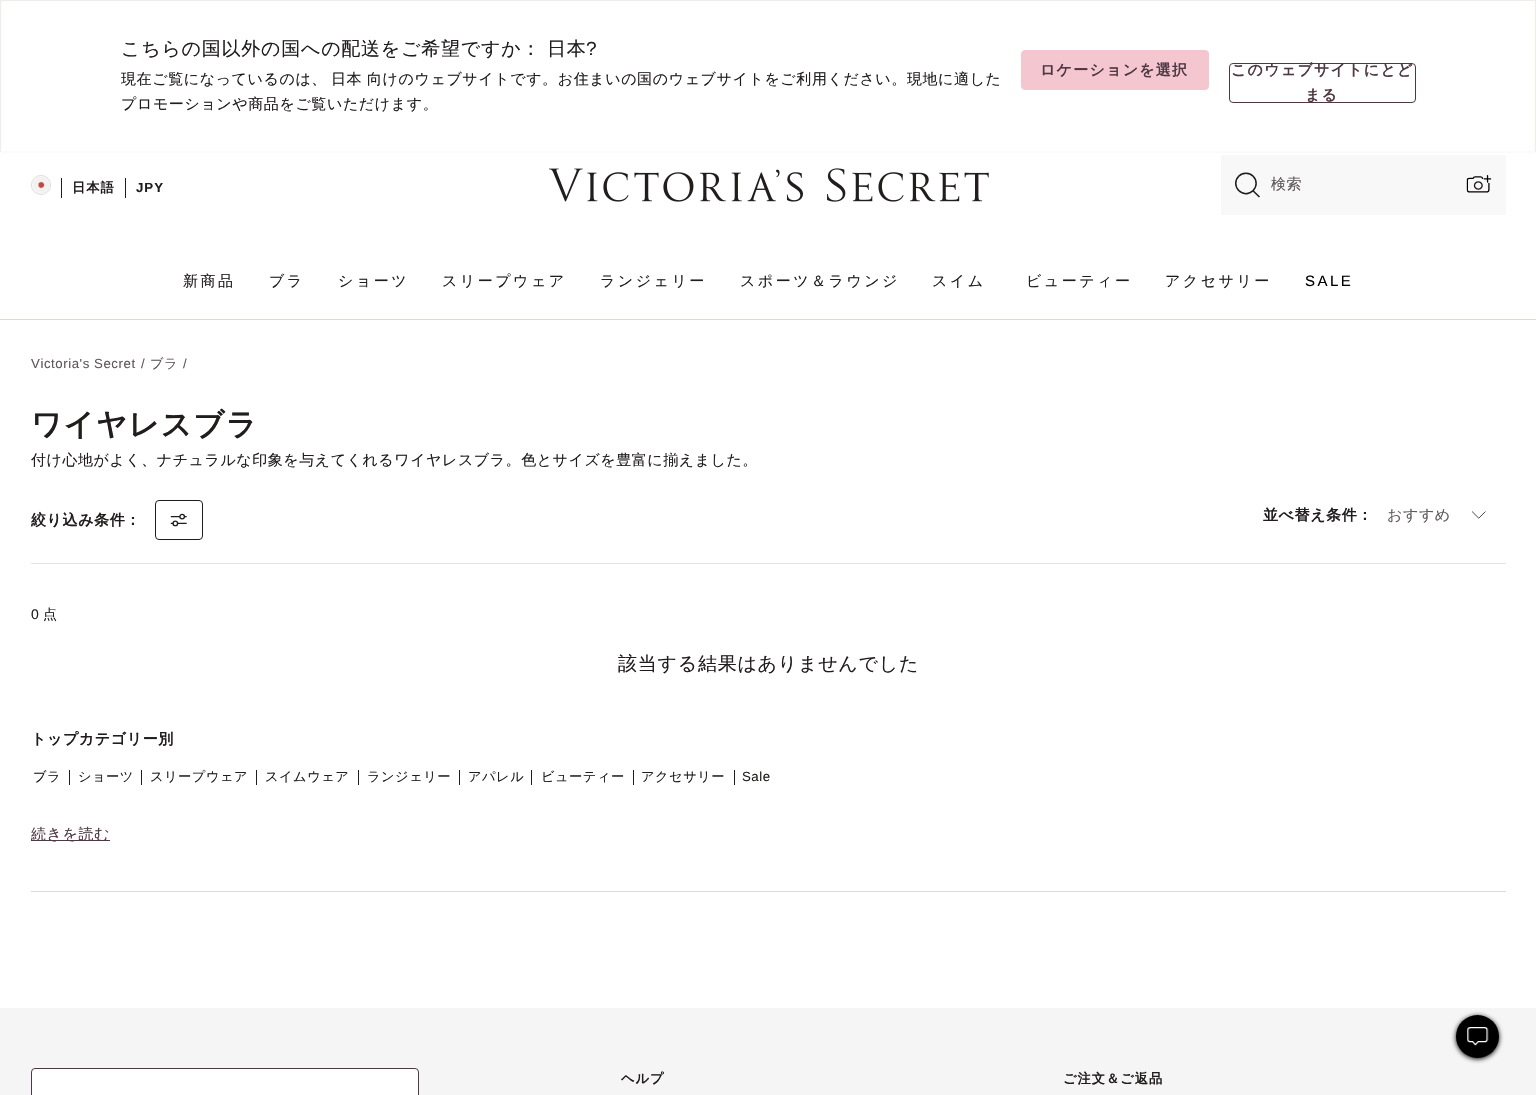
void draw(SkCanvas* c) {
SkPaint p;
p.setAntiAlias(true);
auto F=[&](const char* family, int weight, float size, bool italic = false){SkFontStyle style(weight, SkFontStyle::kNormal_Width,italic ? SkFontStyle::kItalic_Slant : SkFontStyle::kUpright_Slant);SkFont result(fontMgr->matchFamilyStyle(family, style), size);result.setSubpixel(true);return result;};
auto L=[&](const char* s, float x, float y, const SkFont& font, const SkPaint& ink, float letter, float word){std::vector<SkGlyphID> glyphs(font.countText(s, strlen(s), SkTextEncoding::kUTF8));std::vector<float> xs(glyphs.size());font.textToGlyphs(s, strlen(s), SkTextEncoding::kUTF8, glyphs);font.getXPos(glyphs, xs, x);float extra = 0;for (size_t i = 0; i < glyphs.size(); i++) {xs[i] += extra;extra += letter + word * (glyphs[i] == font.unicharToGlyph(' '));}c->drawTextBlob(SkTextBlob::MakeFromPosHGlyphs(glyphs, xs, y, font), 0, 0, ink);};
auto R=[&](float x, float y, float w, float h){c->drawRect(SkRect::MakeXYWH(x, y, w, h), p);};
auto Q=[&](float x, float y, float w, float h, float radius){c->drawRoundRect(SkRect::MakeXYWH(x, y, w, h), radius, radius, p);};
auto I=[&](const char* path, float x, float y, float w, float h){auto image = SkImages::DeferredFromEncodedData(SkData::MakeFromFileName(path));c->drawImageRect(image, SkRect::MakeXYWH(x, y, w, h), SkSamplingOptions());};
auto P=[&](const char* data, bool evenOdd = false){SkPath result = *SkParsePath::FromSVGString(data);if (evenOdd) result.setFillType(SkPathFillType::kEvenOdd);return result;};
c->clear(0xffffffff);
p.setColor(0xfff9e2e7);
R(0,0,1536,2);
p.setColor(0xffffffff);
Q(0,0,1536,153,2.5);
p.setStroke(true);
p.setStrokeWidth(1.2);
p.setColor(0xfff5f5f6);
c->drawPath(P("M1535 151.5l-1 .5h-1531.5l-1.5-.5"),p);
p.setColor(0xffefecea);
c->drawPath(P("M1 151.5l-.5-1.5v-147.5l.5-1.5l1.5-.5h1531.5l1 .5l.5 1.5v147.5l-.5 1.5"),p);
auto f1 = F("WenQuanYi Zen Hei",500,19);
p.setStroke(false);
p.setColor(0xff221d1d);
L("こちらの国以外の国への配送をご希望ですか：",121,55,f1,p,.75,0);
L("日本",547,55,f1,p,.75,0);
auto f2 = F("Liberation Sans",400,19);
L("?",586,55,f2,p,.75,0);
auto f3 = F("WenQuanYi Zen Hei",500,15);
L("現在ご覧になっているのは、",121,84,f3,p,.6,0);
L("日本",331,84,f3,p,.6,0);
L("向けのウェブサイトです。お住まいの国のウェブサイトをご利用ください。現地に適した",367,84,f3,p,.6,0);
L("プロモーションや商品をご覧いただけます。",121,109,f3,p,.6,0);
p.setColor(0xfff4c6cf);
c->drawRoundRect(SkRect::MakeXYWH(1021.5,50.5,187,39),3.5,3.5,p);
p.setStroke(true);
p.setStrokeWidth(1);
c->drawRoundRect(SkRect::MakeXYWH(1021.5,50.5,187,39),3.5,3.5,p);
auto f4 = F("WenQuanYi Zen Hei",700,15);
p.setStroke(false);
p.setColor(0xff4e3844);
L("ロケーションを選択",1040,75,f4,p,1.25,0);
p.setStroke(true);
c->drawRoundRect(SkRect::MakeXYWH(1229.5,63.5,186,39),3.5,3.5,p);
p.setStroke(false);
L("このウェブサイトにとど",1231,75,f4,p,1.25,0);
L("まる",1305,100,f4,p,1.25,0);
p.setStroke(true);
p.setColor(0xffe0dad5);
c->drawCircle(41,185,9.5,p);
I("1.png",33,176,17,18);
p.setStroke(false);
p.setColor(0xff221d1d);
R(61,178,1,20);
auto f5 = F("WenQuanYi Zen Hei",700,13.25);
L("日本語",72,192,f5,p,1,0);
R(125,178,1,20);
auto f6 = F("Liberation Sans",700,13.25);
L("JPY",136,192,f6,p,1,0);
I("2.png",549,168,440,34);
p.setColor(0xfff9f8f9);
Q(1221,155,285,60,2.5);
I("3.png",1235,172,25,26);
p.setColor(0xff605858);
L("検索",1271,189,f3,p,.6,0);
I("4.png",1466,175,26,18);
p.setColor(0xff221d1d);
L("新商品",183,286,f3,p,2.5,0);
L("ブラ",269,286,f3,p,2.5,0);
L("ショーツ",338,286,f3,p,2.5,0);
L("スリープウェア",442,286,f3,p,2.5,0);
L("ランジェリー",600,286,f3,p,2.5,0);
L("スポーツ＆ラウンジ",740,286,f3,p,2.5,0);
L("スイム",932,286,f3,p,2.5,0);
L("ビューティー",1026,286,f3,p,2.5,0);
L("アクセサリー",1165,286,f3,p,2.5,0);
auto f7 = F("Liberation Sans",400,15);
p.setColor(0xff000000);
L("SALE",1305,286,f7,p,2.5,0);
p.setColor(0xffe0dad5);
R(0,319,1536,1);
auto f8 = F("Liberation Sans",400,13.25);
p.setColor(0xff605858);
L("Victoria's Secret",31,368,f8,p,.55,0);
L("/",141,368,f8,p,.55,0);
auto f9 = F("WenQuanYi Zen Hei",500,13.25);
L("ブラ",150,368,f9,p,.55,0);
L("/",183,368,f8,p,.55,0);
auto f10 = F("WenQuanYi Zen Hei",700,30.5);
p.setColor(0xff221d1d);
L("ワイヤレスブラ",31,435,f10,p,1.25,0);
L("付け心地がよく、ナチュラルな印象を与えてくれるワイヤレスブラ。色とサイズを豊富に揃えました。",31,465,f3,p,.55,0);
p.setColor(0xffe8e3df);
R(31,563,1475,1);
p.setColor(0xff221d1d);
L("絞り込み条件：",31,525,f4,p,.6,0);
p.setStroke(true);
c->drawRoundRect(SkRect::MakeXYWH(155.5,500.5,47,39),3.5,3.5,p);
I("5.png",170,513,17,14);
p.setStroke(false);
L("並べ替え条件：",1263,520,f4,p,.6,0);
p.setColor(0xff605858);
L("おすすめ",1387,520,f3,p,.6,0);
I("6.png",1472,511,14,8);
auto f11 = F("Liberation Sans",400,14);
p.setColor(0xff221d1d);
L("0",31,619,f11,p,.55,0);
auto f12 = F("WenQuanYi Zen Hei",500,14);
L("点",43,619,f12,p,.55,0);
L("該当する結果はありませんでした",618,670,f1,p,.75,0);
L("トップカテゴリー別",31,744,f4,p,.6,0);
L("ブラ",33,781,f9,p,.5,0);
R(69,770,1,15);
L("ショーツ",78,781,f9,p,.5,0);
R(141,770,1,15);
L("スリープウェア",150,781,f9,p,.5,0);
R(256,770,1,15);
L("スイムウェア",265,781,f9,p,.5,0);
R(358,770,1,15);
L("ランジェリー",367,781,f9,p,.5,0);
R(459,770,1,15);
L("アパレル",468,781,f9,p,.5,0);
R(531,770,1,15);
L("ビューティー",541,781,f9,p,.5,0);
R(633,770,1,15);
L("アクセサリー",641,781,f9,p,.5,0);
R(734,770,1,15);
L("Sale",742,781,f8,p,.5,0);
p.setColor(0xff4e3844);
R(31,840,79,1);
L("続きを読む",31,839,f3,p,.6,0);
p.setColor(0xffe0dad5);
R(31,891,1475,1);
p.setColor(0xfff5f5f6);
R(0,1008,1536,87);
p.setColor(0xff000000);
p.setMaskFilter(SkMaskFilter::MakeBlur(kNormal_SkBlurStyle, 2.5));
c->drawRoundRect(SkRect::MakeXYWH(1456,1016,43,43),21.5,21.5,p);
p.setMaskFilter(nullptr);
c->drawCircle(1477.5,1036.5,21.5,p);
I("7.png",1467,1027,22,19);
p.setColor(0xffffffff);
c->drawRoundRect(SkRect::MakeXYWH(31.5,1068.5,387,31),3.5,3.5,p);
p.setStroke(true);
p.setColor(0xff4e3844);
c->drawRoundRect(SkRect::MakeXYWH(31.5,1068.5,387,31),3.5,3.5,p);
p.setStroke(false);
p.setColor(0xff221d1d);
L("ヘルプ",621,1083,f5,p,1,0);
L("ご注文＆ご返品",1063,1083,f5,p,1,0);
}
